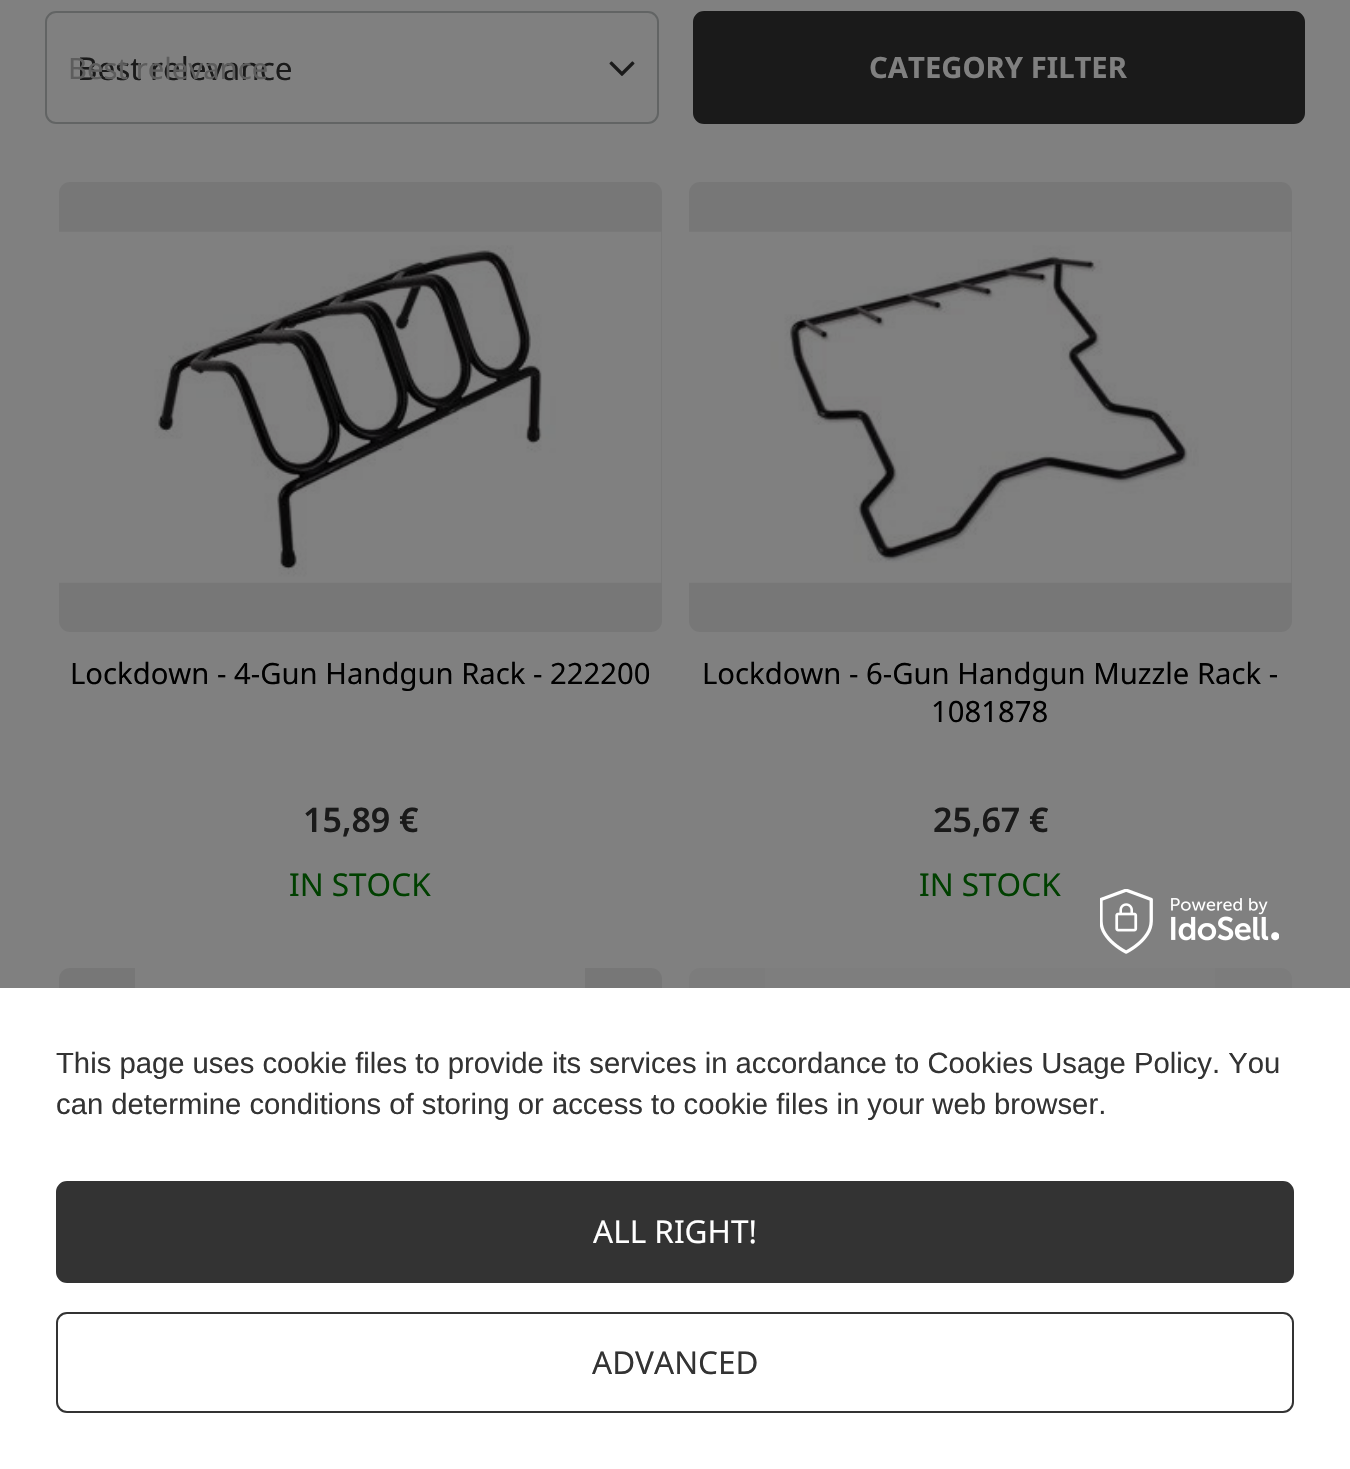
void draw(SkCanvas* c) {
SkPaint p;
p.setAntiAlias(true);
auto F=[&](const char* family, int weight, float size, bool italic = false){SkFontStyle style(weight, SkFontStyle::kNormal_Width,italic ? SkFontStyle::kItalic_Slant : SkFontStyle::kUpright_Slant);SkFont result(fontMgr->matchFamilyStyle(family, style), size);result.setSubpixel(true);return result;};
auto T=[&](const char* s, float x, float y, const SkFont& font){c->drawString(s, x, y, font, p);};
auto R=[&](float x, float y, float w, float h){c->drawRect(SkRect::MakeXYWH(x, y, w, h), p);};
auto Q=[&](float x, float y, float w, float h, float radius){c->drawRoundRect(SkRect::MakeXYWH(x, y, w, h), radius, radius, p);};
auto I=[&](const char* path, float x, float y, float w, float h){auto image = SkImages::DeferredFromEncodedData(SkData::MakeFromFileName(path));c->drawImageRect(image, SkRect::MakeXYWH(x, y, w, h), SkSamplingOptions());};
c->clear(0xff808080);
p.setStroke(true);
p.setStrokeWidth(2);
p.setColor(0xff626464);
c->drawRoundRect(SkRect::MakeXYWH(46,12,612,111),10,10,p);
auto f1 = F("Noto Sans",400,31.5);
p.setStroke(false);
p.setColor(0xff1a1a1a);
T("Best relevance",77,80,f1);
auto f2 = F("Noto Sans",400,29.25);
p.setColor(0xff5d5d5d);
T("Best relevance",68,79,f2);
I("1.png",609,61,26,15);
p.setColor(0xff1a1a1a);
c->drawRoundRect(SkRect::MakeXYWH(694,12,610,111),10,10,p);
p.setStroke(true);
c->drawRoundRect(SkRect::MakeXYWH(694,12,610,111),10,10,p);
auto f3 = F("Noto Sans",700,29.25);
p.setStroke(false);
p.setColor(0xff808080);
T("CATEGORY FILTER",869,78,f3);
p.setColor(0xff777777);
Q(59,182,603,450,11);
I("2.png",59,231,603,352);
p.setColor(0xff000000);
T("Lockdown - 4-Gun Handgun Rack - 222200",70,684,f2);
auto f4 = F("Noto Sans",600,34);
p.setColor(0xff1a1a1a);
T("15,89 €",303,832,f4);
p.setColor(0xff004000);
T("IN STOCK",289,896,f1);
p.setColor(0xff777777);
Q(689,182,603,450,11);
I("3.png",689,231,603,352);
p.setColor(0xff000000);
T("Lockdown - 6-Gun Handgun Muzzle Rack -",702,684,f2);
T("1081878",931,722,f2);
p.setColor(0xff1a1a1a);
T("25,67 €",933,832,f4);
p.setColor(0xff004000);
T("IN STOCK",919,896,f1);
p.setColor(0xff777777);
Q(59,968,603,450,11);
I("4.png",135,968,450,20);
p.setColor(0xff7c7c7c);
Q(689,968,603,450,11);
I("5.png",765,968,450,20);
p.setColor(0xffffffff);
R(0,988,1350,481);
I("6.png",1100,889,179,65);
auto f5 = F("Liberation Sans",400,29.25);
p.setColor(0xff333333);
T("This page uses cookie files to provide its services in accordance to Cookies Usage Policy. You",56,1073,f5);
T("can determine conditions of storing or access to cookie files in your web browser.",56,1114,f5);
c->drawRoundRect(SkRect::MakeXYWH(57,1182,1236,100),10,10,p);
p.setStroke(true);
c->drawRoundRect(SkRect::MakeXYWH(57,1182,1236,100),10,10,p);
p.setStroke(false);
p.setColor(0xffffffff);
T("ALL RIGHT!",593,1243,f1);
p.setStroke(true);
p.setColor(0xff333333);
c->drawRoundRect(SkRect::MakeXYWH(57,1313,1236,99),10,10,p);
p.setStroke(false);
T("ADVANCED",592,1374,f1);
}
